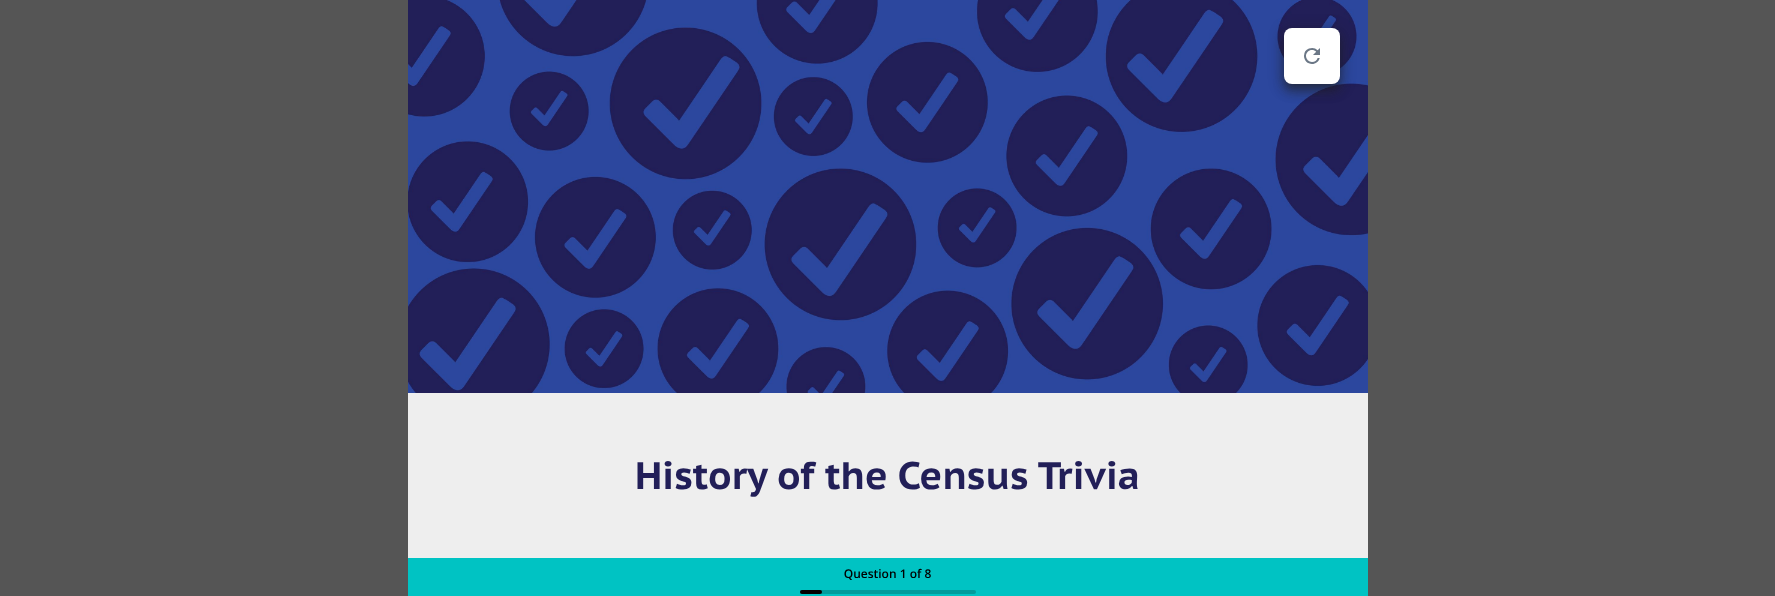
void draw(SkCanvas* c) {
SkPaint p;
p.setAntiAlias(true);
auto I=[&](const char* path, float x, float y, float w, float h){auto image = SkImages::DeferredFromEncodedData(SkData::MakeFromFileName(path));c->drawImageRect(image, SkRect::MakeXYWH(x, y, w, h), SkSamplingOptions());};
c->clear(0xff555555);
I("1.png",408,0,960,596);
}
